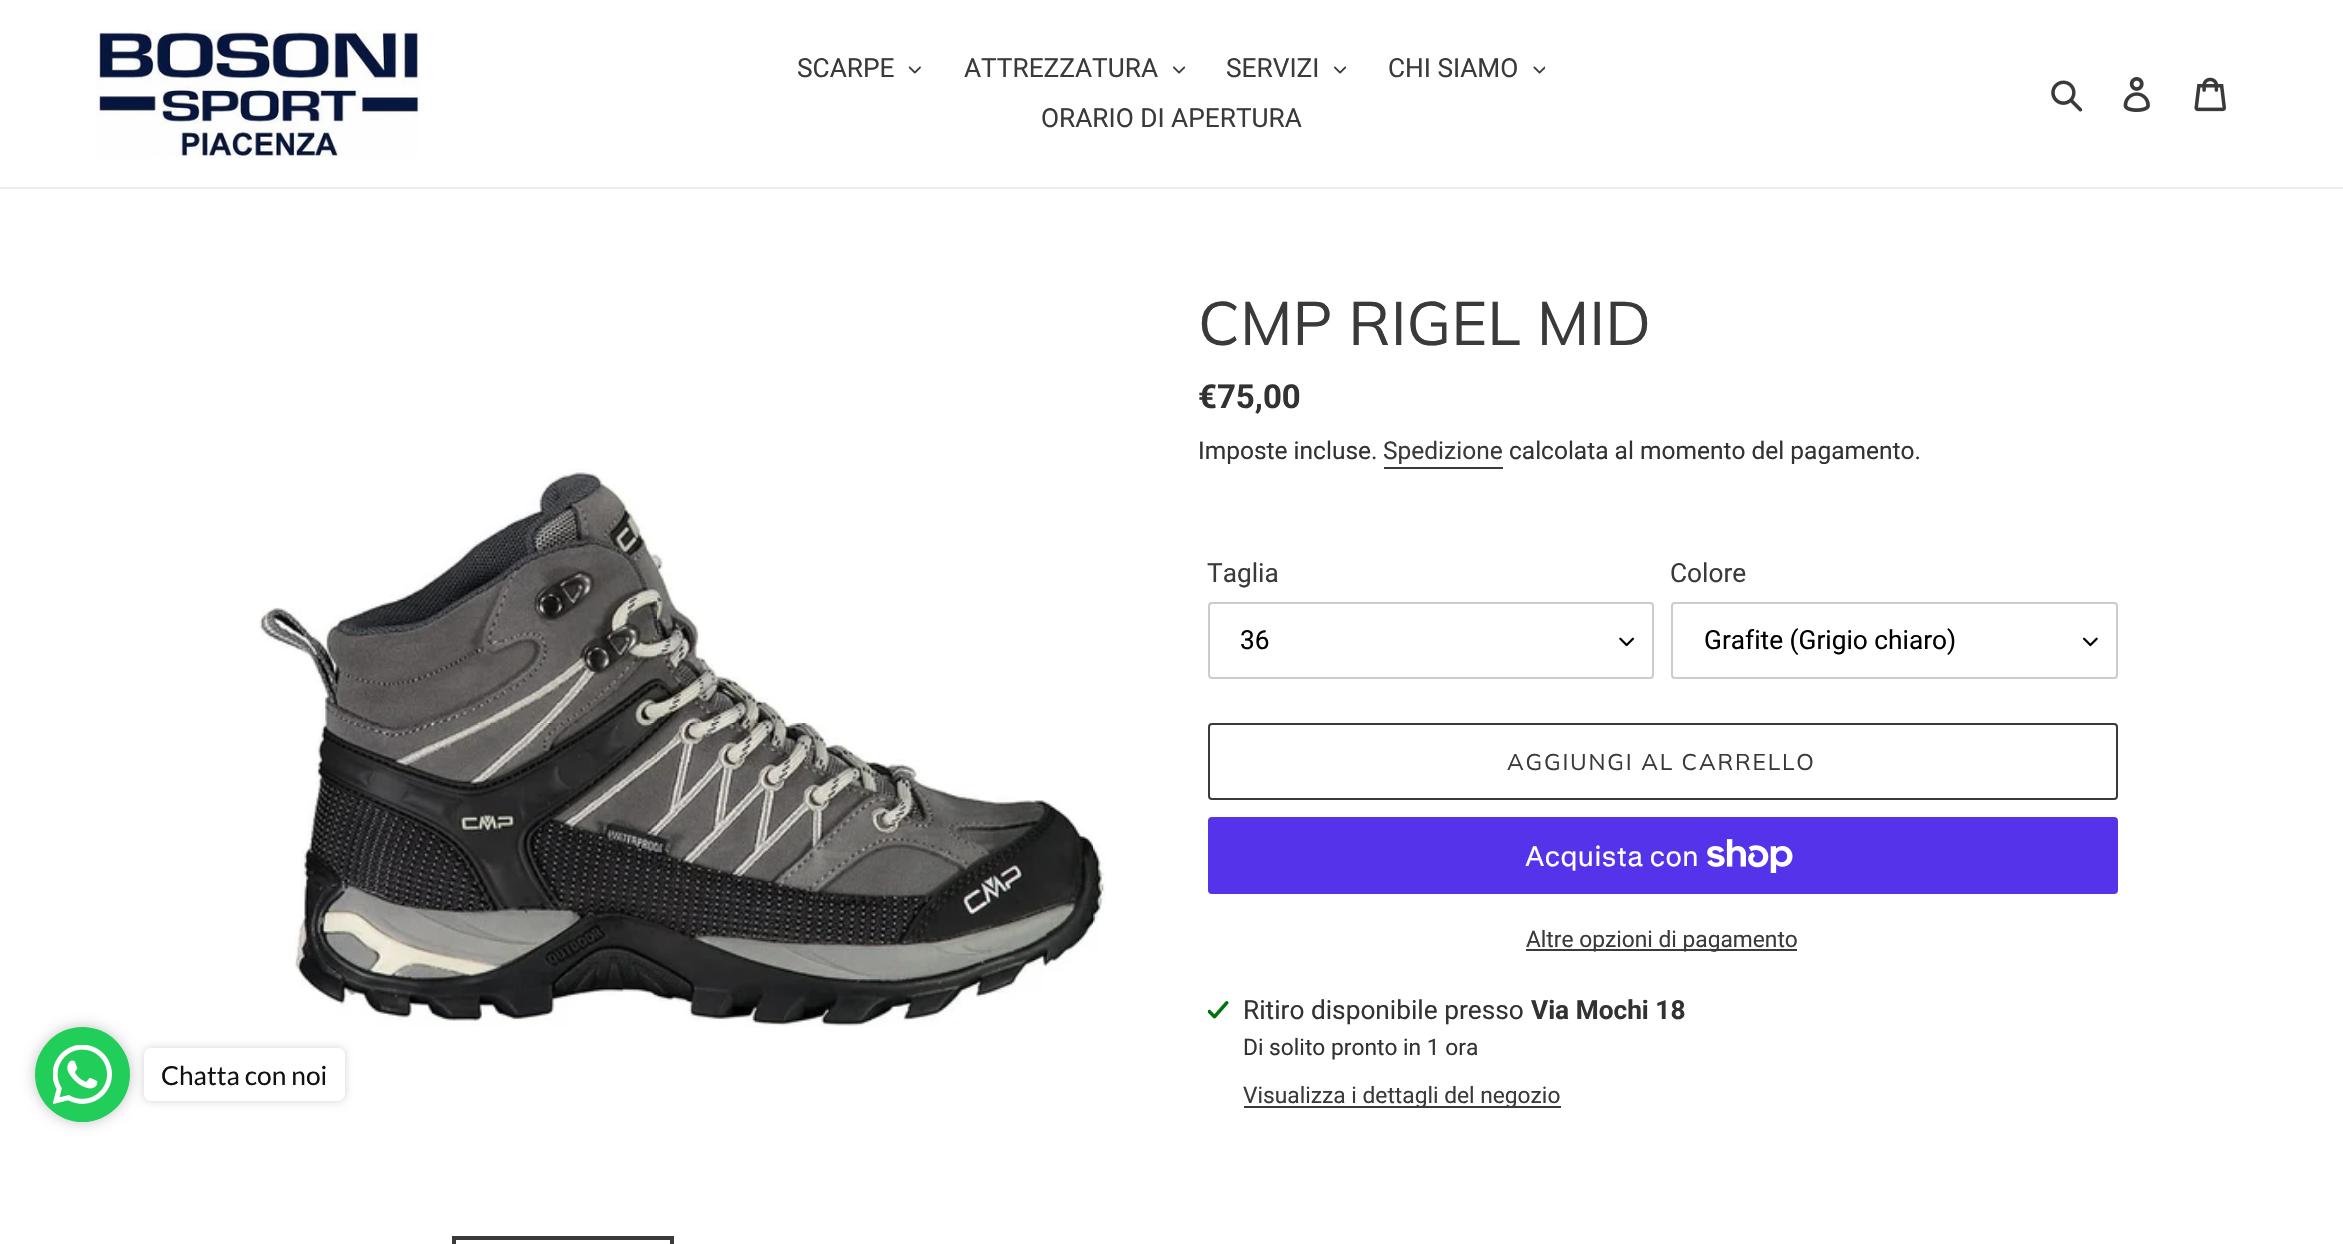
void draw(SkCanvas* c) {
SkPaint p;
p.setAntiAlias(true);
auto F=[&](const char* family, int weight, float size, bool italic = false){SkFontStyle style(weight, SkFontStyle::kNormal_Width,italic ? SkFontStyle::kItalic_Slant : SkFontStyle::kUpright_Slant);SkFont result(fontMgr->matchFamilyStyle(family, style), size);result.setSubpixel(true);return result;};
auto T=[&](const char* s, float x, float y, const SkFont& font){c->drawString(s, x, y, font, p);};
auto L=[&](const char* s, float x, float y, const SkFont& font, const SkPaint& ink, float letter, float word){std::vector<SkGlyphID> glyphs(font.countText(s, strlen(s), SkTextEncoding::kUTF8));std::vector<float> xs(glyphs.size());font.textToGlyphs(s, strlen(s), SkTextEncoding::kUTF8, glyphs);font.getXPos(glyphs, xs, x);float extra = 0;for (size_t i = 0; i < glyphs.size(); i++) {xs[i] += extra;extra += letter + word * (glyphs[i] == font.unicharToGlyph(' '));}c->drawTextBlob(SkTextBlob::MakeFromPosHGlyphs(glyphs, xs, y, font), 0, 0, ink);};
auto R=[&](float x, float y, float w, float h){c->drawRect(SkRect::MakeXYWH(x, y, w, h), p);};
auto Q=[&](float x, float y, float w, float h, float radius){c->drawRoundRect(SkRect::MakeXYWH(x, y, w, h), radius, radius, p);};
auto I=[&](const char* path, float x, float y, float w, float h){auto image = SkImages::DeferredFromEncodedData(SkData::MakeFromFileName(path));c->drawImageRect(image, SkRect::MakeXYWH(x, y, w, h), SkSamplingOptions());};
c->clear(0xffffffff);
p.setColor(0xffebebeb);
R(0,187,2343,2);
I("1.png",96,30,324,128);
auto f1 = F("Roboto",400,26.25);
p.setColor(0xff3a3a3a);
T("SCARPE",797,77,f1);
I("2.png",908,66,13,8);
T("ATTREZZATURA",964,77,f1);
I("3.png",1173,66,12,8);
T("SERVIZI",1226,77,f1);
I("4.png",1334,66,13,8);
T("CHI SIAMO",1388,77,f1);
I("5.png",1533,66,12,8);
T("ORARIO DI APERTURA",1041,127,f1);
I("6.png",2051,80,32,32);
I("7.png",2123,77,27,35);
I("8.png",2194,77,32,35);
p.setColor(0xffc2c2c2);
p.setMaskFilter(SkMaskFilter::MakeBlur(kNormal_SkBlurStyle, 7));
c->drawRoundRect(SkRect::MakeXYWH(35,1027,95,95),47.5,47.5,p);
p.setMaskFilter(nullptr);
p.setColor(0xff22ce5a);
c->drawCircle(82.5,1074.5,47.5,p);
I("9.png",53,1045,59,59);
p.setColor(0xffd3d3d3);
p.setMaskFilter(SkMaskFilter::MakeBlur(kNormal_SkBlurStyle, 4.5));
c->drawRoundRect(SkRect::MakeXYWH(144,1048,201,53),7,7,p);
p.setMaskFilter(nullptr);
p.setColor(0xffffffff);
Q(144,1048,201,53,7);
auto f2 = F("Lato",400,26.25);
p.setColor(0xff111111);
T("Chatta con noi",161,1085,f2);
I("10.png",259,469,847,558);
p.setStroke(true);
p.setStrokeWidth(4);
p.setColor(0xff3a3a3a);
c->drawRect(SkRect::MakeXYWH(454,1238,218,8),p);
auto f3 = F("Muli",400,61.25);
p.setStroke(false);
T("CMP RIGEL MID",1198,345,f3);
auto f4 = F("Roboto",700,33);
p.setColor(0xff333232);
T("€75,00",1198,408,f4);
auto f5 = F("Roboto",400,24.5);
T("Imposte incluse.",1198,459,f5);
p.setColor(0xff3a3a3a);
T("Spedizione",1383,459,f5);
R(1384,467,119,2);
p.setColor(0xff333232);
T("calcolata al momento del pagamento.",1509,459,f5);
p.setColor(0xff3a3a3a);
T("Taglia",1207,582,f1);
I("11.png",1619,637,15,10);
p.setStroke(true);
p.setStrokeWidth(2);
p.setColor(0xffcccccc);
c->drawRoundRect(SkRect::MakeXYWH(1209,603,444,75),3,3,p);
p.setStroke(false);
p.setColor(0xff000000);
T("36",1240,649,f1);
p.setColor(0xff3a3a3a);
T("Colore",1670,582,f1);
I("12.png",2083,637,15,10);
p.setStroke(true);
p.setColor(0xffcccccc);
c->drawRoundRect(SkRect::MakeXYWH(1672,603,445,75),3,3,p);
p.setStroke(false);
p.setColor(0xff000000);
T("Grafite (Grigio chiaro)",1704,649,f1);
p.setStroke(true);
p.setColor(0xff3a3a3a);
c->drawRoundRect(SkRect::MakeXYWH(1209,724,908,75),3,3,p);
auto f6 = F("Muli",400,22.75);
p.setStroke(false);
L("AGGIUNGI AL CARRELLO",1507,770,f6,p,1.8,0);
p.setColor(0xff5433eb);
Q(1208,817,910,77,4);
auto f7 = F("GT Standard",400,28);
p.setColor(0xffffffff);
T("Acquista con",1525,866,f7);
I("13.png",1707,839,86,34);
p.setColor(0xff3a3a3a);
R(1526,949,271,2);
auto f8 = F("Roboto",400,22.75);
T("Altre opzioni di pagamento",1526,947,f8);
I("14.png",1208,1001,21,18);
p.setColor(0xff333232);
T("Ritiro disponibile presso",1243,1019,f1);
auto f9 = F("Roboto",700,26.25);
T("Via Mochi 18",1531,1019,f9);
T("Di solito pronto in 1 ora",1243,1055,f8);
p.setColor(0xff3a3a3a);
R(1244,1106,317,2);
T("Visualizza i dettagli del negozio",1243,1103,f8);
}
